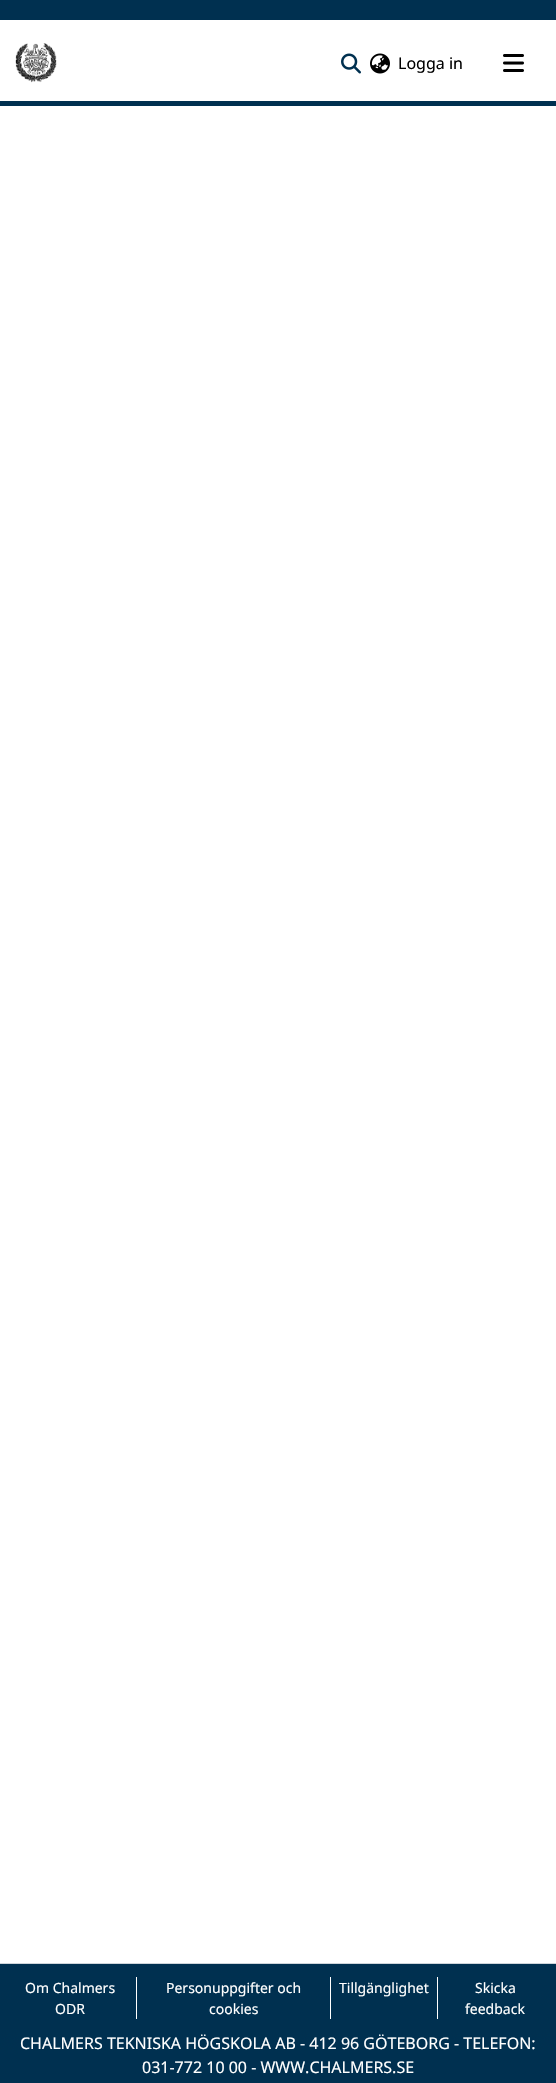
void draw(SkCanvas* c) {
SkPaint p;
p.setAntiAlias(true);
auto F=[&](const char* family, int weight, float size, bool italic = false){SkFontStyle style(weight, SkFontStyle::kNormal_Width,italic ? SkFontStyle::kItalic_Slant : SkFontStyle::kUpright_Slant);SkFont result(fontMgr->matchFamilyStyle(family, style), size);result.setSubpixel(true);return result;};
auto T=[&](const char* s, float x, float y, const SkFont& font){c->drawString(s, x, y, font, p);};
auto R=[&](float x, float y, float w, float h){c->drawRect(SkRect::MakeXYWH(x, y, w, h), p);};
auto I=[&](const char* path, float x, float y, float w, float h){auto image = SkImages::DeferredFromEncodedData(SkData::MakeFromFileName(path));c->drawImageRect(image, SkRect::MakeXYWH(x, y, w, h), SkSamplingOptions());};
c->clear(0xffffffff);
p.setColor(0xff003050);
R(0,0,556,20);
R(0,101,556,5);
I("1.png",15,43,42,40);
I("2.png",341,53,20,21);
I("3.png",370,53,20,21);
auto f1 = F("Noto Sans",400,16);
p.setColor(0xff000000);
T("Logga in",398,69,f1);
I("4.png",503,54,21,18);
p.setColor(0xff003050);
R(0,1964,556,119);
p.setColor(0xffced4da);
R(0,1963,556,1);
auto f2 = F("Noto Sans",400,14);
p.setColor(0xffffffff);
T("Om Chalmers",25,1993,f2);
T("ODR",55,2014,f2);
R(136,1977,1,42);
T("Personuppgifter och",166,1993,f2);
T("cookies",209,2014,f2);
R(330,1977,1,42);
T("Tillgänglighet",339,1993,f2);
R(437,1977,1,42);
T("Skicka",475,1993,f2);
T("feedback",465,2014,f2);
T("CHALMERS TEKNISKA HÖGSKOLA AB - 412 96 GÖTEBORG - TELEFON:",20,2049,f1);
T("031-772 10 00 - WWW.CHALMERS.SE",142,2073,f1);
}
